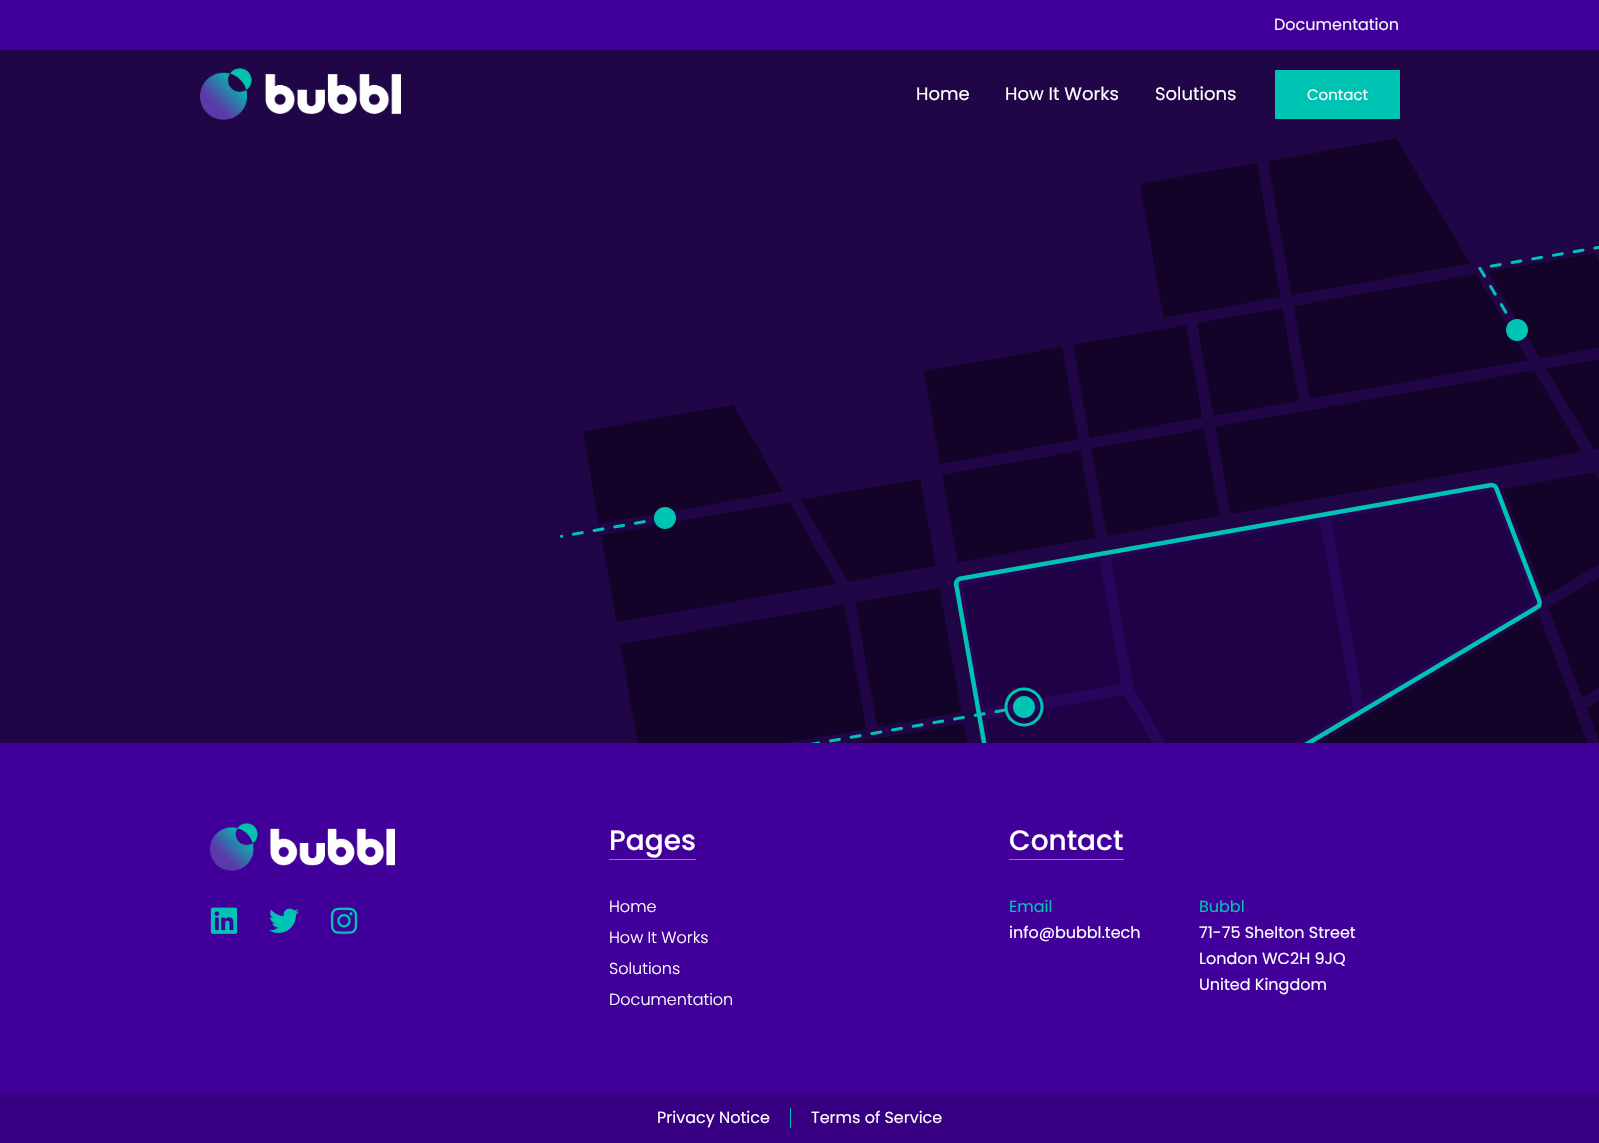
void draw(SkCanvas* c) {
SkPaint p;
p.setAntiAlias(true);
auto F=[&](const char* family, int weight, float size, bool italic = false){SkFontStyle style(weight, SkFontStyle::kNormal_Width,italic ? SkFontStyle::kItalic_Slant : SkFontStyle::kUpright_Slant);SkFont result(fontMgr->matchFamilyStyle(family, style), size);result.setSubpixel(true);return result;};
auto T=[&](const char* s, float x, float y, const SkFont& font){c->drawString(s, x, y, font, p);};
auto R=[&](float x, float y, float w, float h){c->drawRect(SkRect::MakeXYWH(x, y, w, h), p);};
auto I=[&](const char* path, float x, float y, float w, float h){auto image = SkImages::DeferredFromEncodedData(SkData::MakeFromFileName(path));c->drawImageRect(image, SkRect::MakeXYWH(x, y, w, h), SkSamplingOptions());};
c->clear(0xff200646);
p.setColor(0xff410099);
R(0,0,1599,50);
auto f1 = F("Poppins",400,16);
p.setColor(0xfff5f5f5);
T("Documentation",1274,30,f1);
I("1.png",200,68,201,52);
auto f2 = F("Poppins",400,18);
p.setColor(0xffffffff);
T("Home",916,100,f2);
T("How It Works",1005,100,f2);
T("Solutions",1155,100,f2);
p.setColor(0xff00c4b3);
R(1275,70,125,49);
auto f3 = F("Poppins",400,15);
p.setColor(0xffffffff);
T("Contact",1307,100,f3);
I("2.png",560,138,1039,605);
p.setColor(0xff410099);
R(0,743,1599,350);
I("3.png",210,823,185,48);
I("4.png",210,907,28,27);
I("5.png",269,908,30,25);
I("6.png",330,907,28,27);
p.setColor(0xff00c4b3);
R(609,859,87,1);
auto f4 = F("Poppins",500,28);
p.setColor(0xffffffff);
T("Pages",609,850,f4);
auto f5 = F("Poppins",300,16);
T("Home",609,912,f5);
T("How It Works",609,943,f5);
T("Solutions",609,974,f5);
T("Documentation",609,1005,f5);
p.setColor(0xff00c4b3);
R(1009,859,115,1);
p.setColor(0xffffffff);
T("Contact",1009,850,f4);
p.setColor(0xff00c4b3);
T("Email",1009,912,f1);
p.setColor(0xffffffff);
T("info@bubbl.tech",1009,938,f1);
p.setColor(0xff00c4b3);
T("Bubbl",1199,912,f1);
p.setColor(0xffffffff);
T("71-75 Shelton Street",1199,938,f1);
T("London WC2H 9JQ",1199,964,f1);
T("United Kingdom",1199,990,f1);
p.setColor(0xff370082);
R(0,1093,1599,50);
p.setColor(0xff00c4b3);
R(790,1108,1,20);
p.setColor(0xffffffff);
T("Privacy Notice",657,1123,f1);
T("Terms of Service",811,1123,f1);
}
